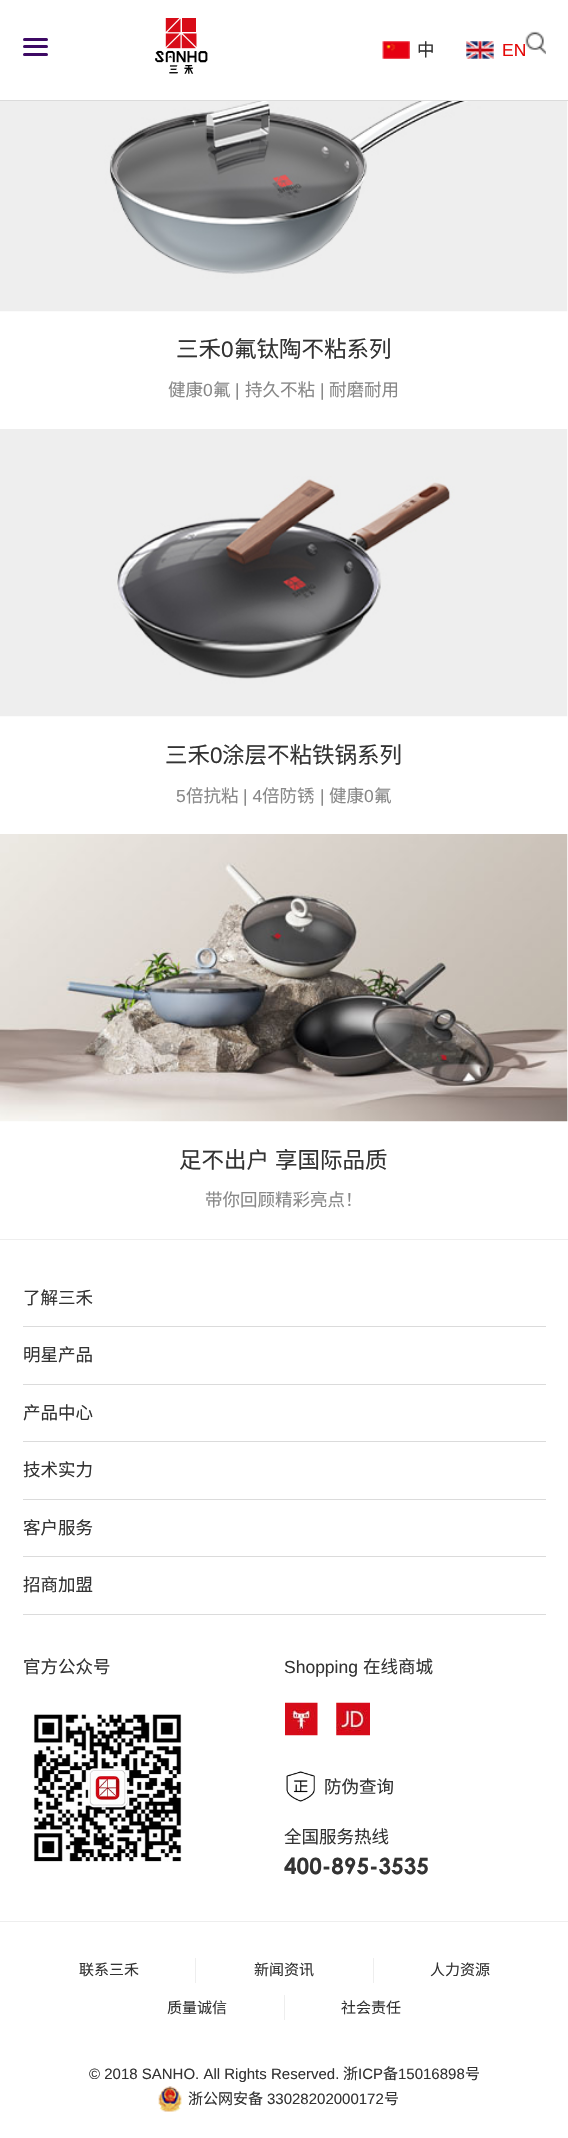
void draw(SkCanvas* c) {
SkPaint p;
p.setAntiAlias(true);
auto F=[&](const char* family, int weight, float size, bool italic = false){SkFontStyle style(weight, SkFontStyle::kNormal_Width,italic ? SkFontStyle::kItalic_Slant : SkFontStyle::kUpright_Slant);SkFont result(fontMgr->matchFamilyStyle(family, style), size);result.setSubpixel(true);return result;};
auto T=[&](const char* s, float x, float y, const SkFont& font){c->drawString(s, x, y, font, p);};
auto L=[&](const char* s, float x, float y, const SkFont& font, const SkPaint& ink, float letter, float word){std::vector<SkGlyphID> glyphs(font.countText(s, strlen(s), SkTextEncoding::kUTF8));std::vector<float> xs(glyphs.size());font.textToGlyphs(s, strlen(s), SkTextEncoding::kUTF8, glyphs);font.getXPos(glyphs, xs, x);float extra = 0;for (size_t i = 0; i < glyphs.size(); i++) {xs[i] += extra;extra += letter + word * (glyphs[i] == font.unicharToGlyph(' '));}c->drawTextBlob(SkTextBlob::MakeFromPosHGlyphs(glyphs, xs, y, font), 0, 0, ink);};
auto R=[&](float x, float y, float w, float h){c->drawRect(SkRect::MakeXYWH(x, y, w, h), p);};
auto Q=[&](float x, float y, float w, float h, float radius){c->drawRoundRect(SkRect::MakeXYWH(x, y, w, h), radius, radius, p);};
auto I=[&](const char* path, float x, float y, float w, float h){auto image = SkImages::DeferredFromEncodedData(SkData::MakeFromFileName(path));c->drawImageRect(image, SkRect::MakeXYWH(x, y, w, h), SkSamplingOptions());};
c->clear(0xffffffff);
p.setColor(0xffdbdbdb);
R(0,100,568,1);
p.setColor(0xff3d0964);
Q(23,38,25,3,1.5);
Q(23,45,25,3,1.5);
Q(23,53,25,3,1.5);
I("1.png",155,18,53,56);
I("2.png",382,41,28,18);
auto f1 = F("Noto Sans CJK SC",400,17.5);
p.setColor(0xff333333);
T("中",417,56,f1);
I("3.png",466,41,28,18);
auto f2 = F("Liberation Sans",400,17.5);
p.setColor(0xffe40807);
T("EN",502,56,f2);
I("4.png",525,31,21,24);
I("5.png",0,101,568,211);
auto f3 = F("Noto Sans CJK SC",400,22.5);
p.setColor(0xff333333);
T("三禾",176,357,f3);
auto f4 = F("Liberation Sans",400,22.5);
T("0",221,357,f4);
T("氟钛陶不粘系列",234,357,f3);
p.setColor(0xff888888);
T("健康",168,396,f1);
T("0",203,396,f2);
T("氟",213,396,f1);
T("|",235,396,f2);
T("持久不粘",245,396,f1);
T("|",320,396,f2);
T("耐磨耐用",329,396,f1);
I("6.png",0,429,568,288);
p.setColor(0xff333333);
T("三禾",165,763,f3);
T("0",210,763,f4);
T("涂层不粘铁锅系列",222,763,f3);
p.setColor(0xff888888);
T("5",176,802,f2);
T("倍抗粘",186,802,f1);
T("| 4",243,802,f2);
T("倍防锈",262,802,f1);
T("|",320,802,f2);
T("健康",329,802,f1);
T("0",364,802,f2);
T("氟",374,802,f1);
I("7.png",0,834,568,288);
p.setColor(0xff333333);
L("足不出户 享国际品质",179,1168,f3,p,0,1);
p.setColor(0xff888888);
T("带你回顾精彩亮点！",205,1206,f1);
p.setColor(0xffeeeeee);
R(0,1239,568,1);
R(0,1921,568,1);
p.setColor(0xffdbdbdb);
R(23,1326,523,1);
p.setColor(0xff333333);
T("了解三禾",23,1304,f1);
p.setColor(0xffdbdbdb);
R(23,1384,523,1);
p.setColor(0xff333333);
T("明星产品",23,1361,f1);
p.setColor(0xffdbdbdb);
R(23,1441,523,1);
p.setColor(0xff333333);
T("产品中心",23,1419,f1);
p.setColor(0xffdbdbdb);
R(23,1499,523,1);
p.setColor(0xff333333);
T("技术实力",23,1476,f1);
p.setColor(0xffdbdbdb);
R(23,1556,523,1);
p.setColor(0xff333333);
T("客户服务",23,1534,f1);
p.setColor(0xffdbdbdb);
R(23,1614,523,1);
p.setColor(0xff333333);
T("招商加盟",23,1591,f1);
T("官方公众号",23,1673,f1);
I("8.png",33,1714,149,148);
T("Shopping",284,1673,f2);
T("在线商城",363,1673,f1);
I("9.png",285,1702,33,34);
I("10.png",336,1702,34,34);
I("11.png",286,1771,29,31);
T("防伪查询",324,1793,f1);
T("全国服务热线",284,1843,f1);
auto f5 = F("Century Gothic",700,22.5);
T("400-895-3535",284,1874,f5);
auto f6 = F("Noto Sans CJK SC",400,15);
T("联系三禾",79,1975,f6);
p.setColor(0xffeeeeee);
R(373,1958,1,25);
R(195,1958,1,25);
p.setColor(0xff333333);
T("新闻资讯",254,1975,f6);
T("人力资源",430,1975,f6);
p.setColor(0xffeeeeee);
R(284,1995,1,25);
p.setColor(0xff333333);
T("质量诚信",167,2013,f6);
T("社会责任",341,2013,f6);
auto f7 = F("Liberation Sans",400,15);
T("© 2018 SANHO. All Rights Reserved.",89,2079,f7);
T("浙",343,2079,f6);
T("ICP",358,2079,f7);
T("备",383,2079,f6);
T("15016898",398,2079,f7);
T("号",465,2079,f6);
I("12.png",158,2086,24,26);
T("浙公网安备",188,2104,f6);
T("33028202000172",267,2104,f7);
T("号",384,2104,f6);
}
